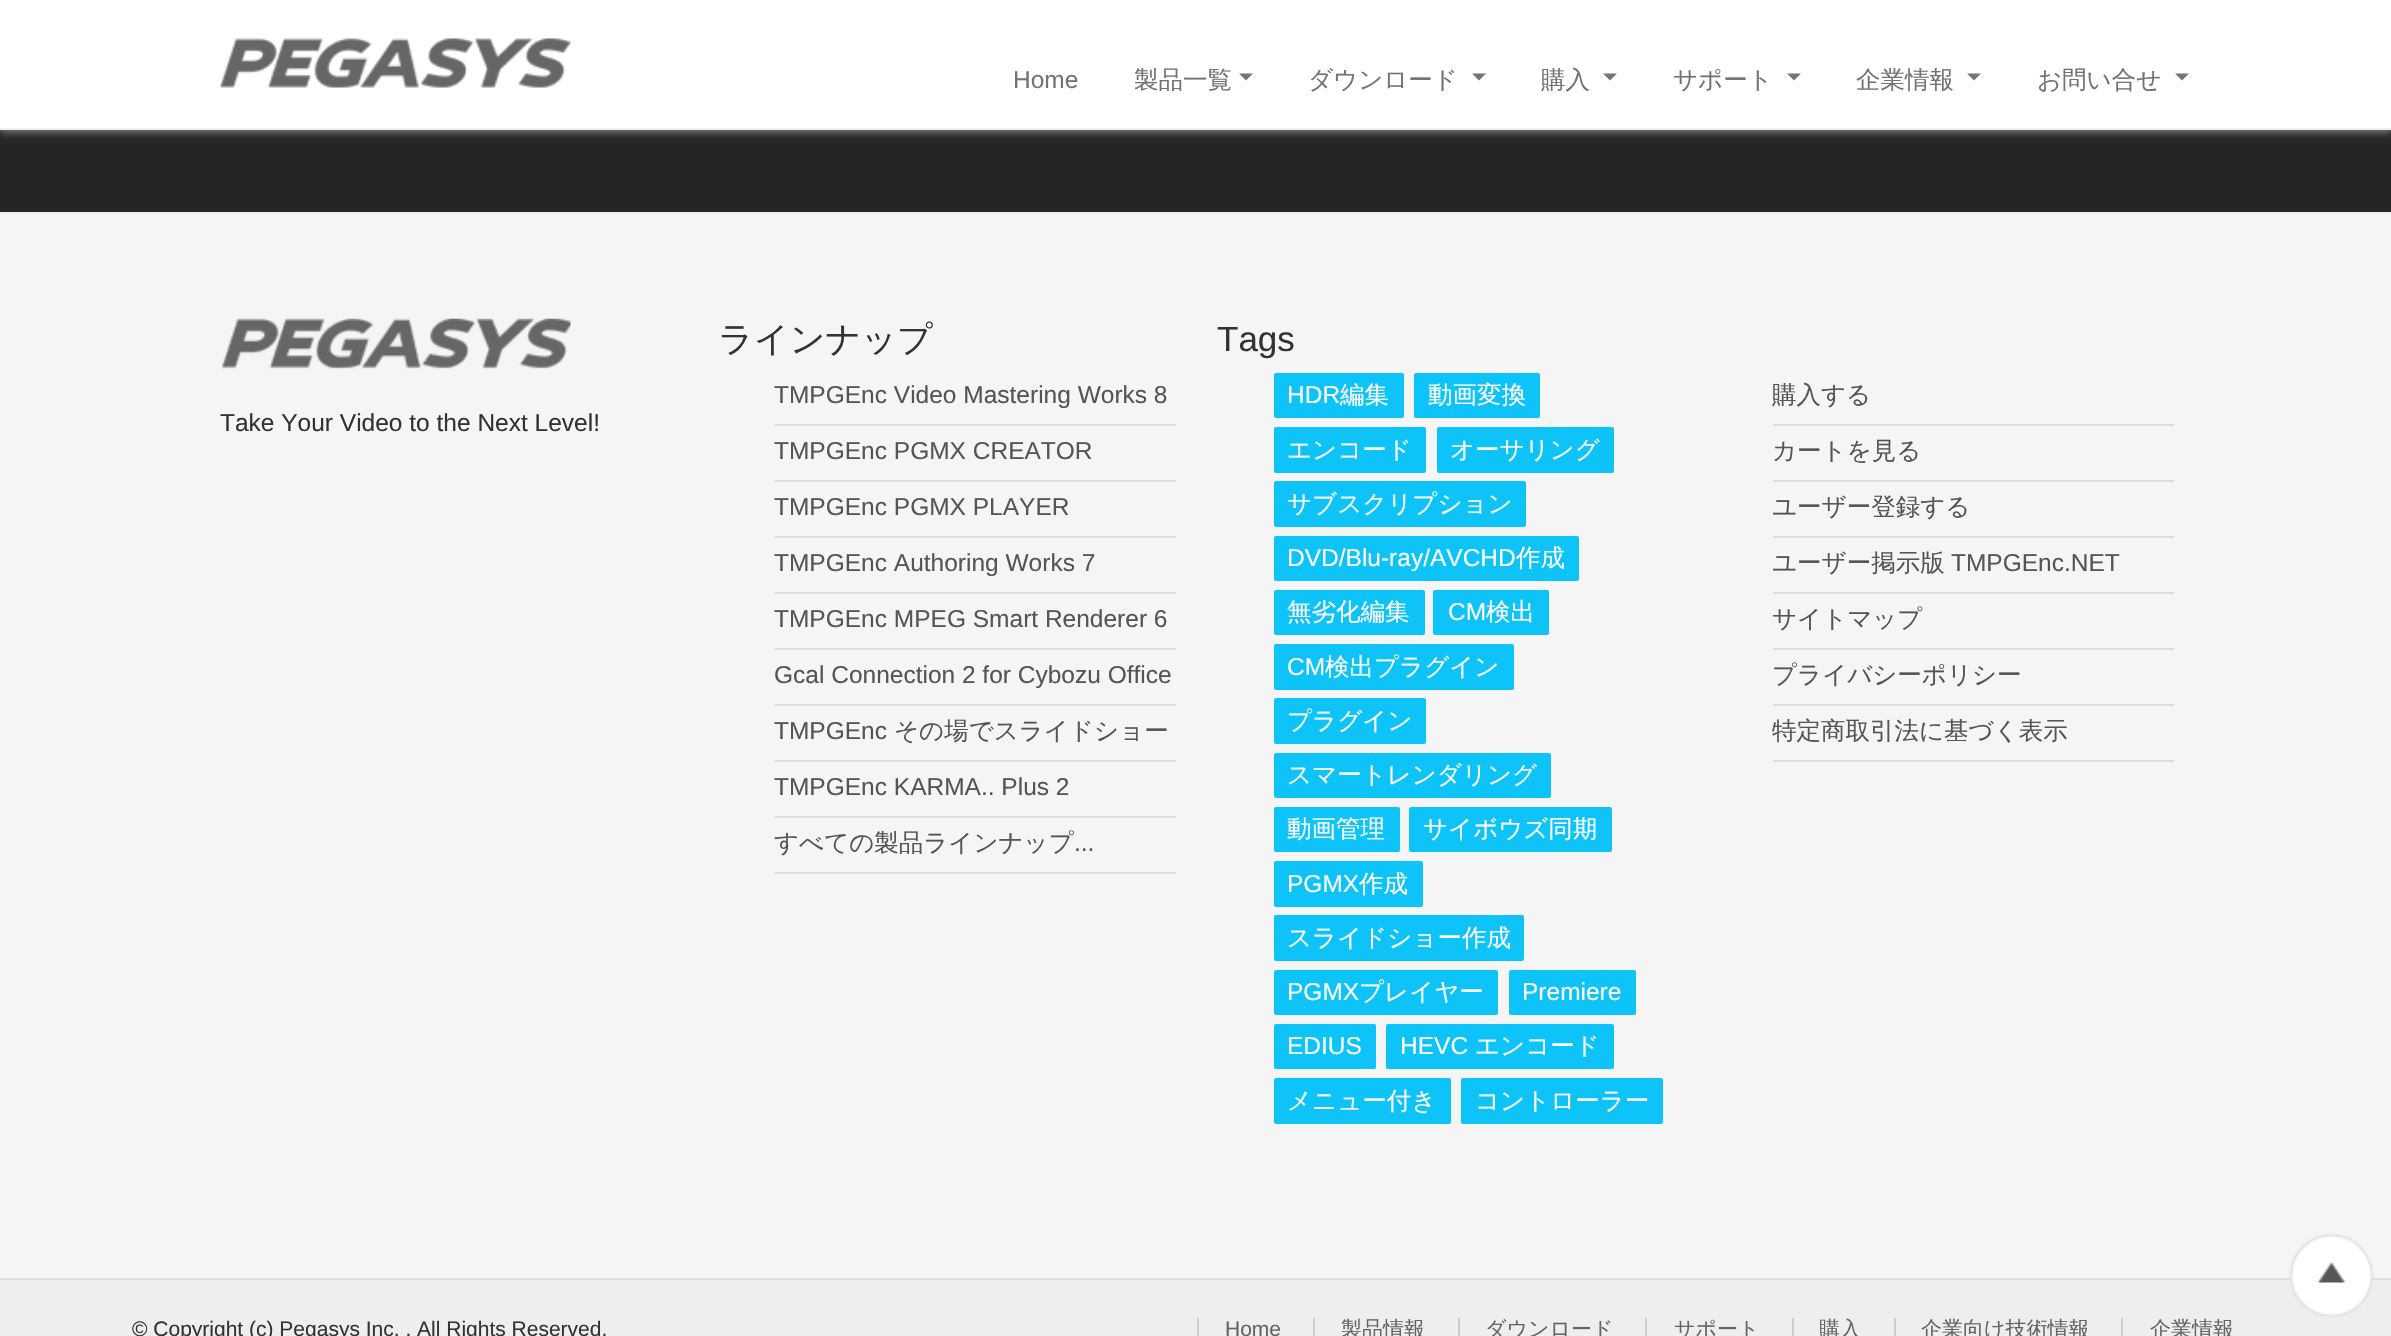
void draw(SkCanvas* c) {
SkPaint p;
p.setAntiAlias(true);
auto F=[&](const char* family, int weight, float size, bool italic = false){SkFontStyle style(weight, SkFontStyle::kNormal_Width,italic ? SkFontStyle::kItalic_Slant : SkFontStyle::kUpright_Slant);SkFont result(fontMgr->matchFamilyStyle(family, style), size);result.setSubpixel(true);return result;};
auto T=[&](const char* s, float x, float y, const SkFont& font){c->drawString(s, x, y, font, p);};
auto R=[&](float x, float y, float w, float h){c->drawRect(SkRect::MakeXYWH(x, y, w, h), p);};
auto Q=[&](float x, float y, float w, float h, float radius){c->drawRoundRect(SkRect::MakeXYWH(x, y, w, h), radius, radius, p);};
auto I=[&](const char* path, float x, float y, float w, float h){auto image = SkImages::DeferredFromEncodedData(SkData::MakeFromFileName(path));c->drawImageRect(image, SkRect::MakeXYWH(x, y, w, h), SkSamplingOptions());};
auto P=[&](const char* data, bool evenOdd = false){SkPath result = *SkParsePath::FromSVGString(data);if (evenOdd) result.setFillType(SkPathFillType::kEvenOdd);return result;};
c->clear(0xff252525);
p.setColor(0xff999999);
p.setMaskFilter(SkMaskFilter::MakeBlur(kNormal_SkBlurStyle, 4.5));
c->drawRect(SkRect::MakeXYWH(0,2,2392,129),p);
p.setMaskFilter(nullptr);
p.setColor(0xffeeeeee);
R(0,128,2391,2);
p.setColor(0xffffffff);
R(0,0,2391,128);
I("1.png",220,38,351,50);
auto f1 = F("Liberation Sans",400,24.5);
p.setColor(0xff737373);
T("Home",1013,88,f1);
auto f2 = F("WenQuanYi Zen Hei",500,24.5);
T("製品一覧",1134,88,f2);
c->drawPath(P("M1239 73.5h14l-7 7z"),p);
T("ダウンロード",1308,88,f2);
c->drawPath(P("M1472 73.5h14l-7 7z"),p);
T("購入",1541,88,f2);
c->drawPath(P("M1603 73.5h14l-7 7z"),p);
T("サポート",1673,88,f2);
c->drawPath(P("M1787 73.5h14l-7 7z"),p);
T("企業情報",1856,88,f2);
c->drawPath(P("M1967 73.5h14l-7 7z"),p);
T("お問い合せ",2037,88,f2);
c->drawPath(P("M2175 73.5h14l-7 7z"),p);
p.setColor(0xfff5f5f5);
R(0,214,2391,1064);
p.setColor(0xffeeeeee);
R(0,212,2391,2);
I("2.png",221,318,350,51);
p.setColor(0xff333333);
T("Take Your Video to the Next Level!",220,431,f1);
auto f3 = F("WenQuanYi Zen Hei",500,35);
T("ラインナップ",718,351,f3);
p.setColor(0xffdddddd);
R(775,424,401,2);
p.setColor(0xff555555);
T("TMPGEnc Video Mastering Works 8",774,403,f1);
p.setColor(0xffdddddd);
R(775,480,401,2);
p.setColor(0xff555555);
T("TMPGEnc PGMX CREATOR",774,459,f1);
p.setColor(0xffdddddd);
R(775,536,401,2);
p.setColor(0xff555555);
T("TMPGEnc PGMX PLAYER",774,515,f1);
p.setColor(0xffdddddd);
R(775,592,401,2);
p.setColor(0xff555555);
T("TMPGEnc Authoring Works 7",774,571,f1);
p.setColor(0xffdddddd);
R(775,648,401,2);
p.setColor(0xff555555);
T("TMPGEnc MPEG Smart Renderer 6",774,627,f1);
p.setColor(0xffdddddd);
R(775,704,401,2);
p.setColor(0xff555555);
T("Gcal Connection 2 for Cybozu Office",774,683,f1);
p.setColor(0xffdddddd);
R(775,760,401,2);
p.setColor(0xff555555);
T("TMPGEnc",774,739,f1);
T("その場でスライドショー",894,739,f2);
p.setColor(0xffdddddd);
R(775,816,401,2);
p.setColor(0xff555555);
T("TMPGEnc KARMA.. Plus 2",774,795,f1);
p.setColor(0xffdddddd);
R(775,872,401,2);
p.setColor(0xff555555);
T("すべての製品ラインナップ",774,851,f2);
T("...",1074,851,f1);
auto f4 = F("Liberation Sans",400,35);
p.setColor(0xff333333);
T("Tags",1217,351,f4);
p.setColor(0xff0ec3f7);
Q(1274,373,130,45,2);
p.setColor(0xffffffff);
T("HDR",1287,403,f1);
T("編集",1340,403,f2);
p.setColor(0xff0ec3f7);
Q(1414,373,126,45,2);
p.setColor(0xffffffff);
T("動画変換",1428,403,f2);
p.setColor(0xff0ec3f7);
Q(1274,427,152,46,2);
p.setColor(0xffffffff);
T("エンコード",1287,458,f2);
p.setColor(0xff0ec3f7);
Q(1437,427,177,46,2);
p.setColor(0xffffffff);
T("オーサリング",1450,458,f2);
p.setColor(0xff0ec3f7);
Q(1274,481,252,46,2);
p.setColor(0xffffffff);
T("サブスクリプション",1287,512,f2);
p.setColor(0xff0ec3f7);
Q(1274,536,305,45,2);
p.setColor(0xffffffff);
T("DVD/Blu-ray/AVCHD",1287,566,f1);
T("作成",1516,566,f2);
p.setColor(0xff0ec3f7);
Q(1274,590,151,45,2);
p.setColor(0xffffffff);
T("無劣化編集",1287,620,f2);
p.setColor(0xff0ec3f7);
Q(1433,590,116,45,2);
p.setColor(0xffffffff);
T("CM",1448,620,f1);
T("検出",1486,620,f2);
p.setColor(0xff0ec3f7);
Q(1274,644,240,46,2);
p.setColor(0xffffffff);
T("CM",1287,675,f1);
T("検出プラグイン",1325,675,f2);
p.setColor(0xff0ec3f7);
Q(1274,698,152,46,2);
p.setColor(0xffffffff);
T("プラグイン",1287,729,f2);
p.setColor(0xff0ec3f7);
Q(1274,753,277,45,2);
p.setColor(0xffffffff);
T("スマートレンダリング",1287,783,f2);
p.setColor(0xff0ec3f7);
Q(1274,807,126,45,2);
p.setColor(0xffffffff);
T("動画管理",1287,837,f2);
p.setColor(0xff0ec3f7);
Q(1409,807,203,45,2);
p.setColor(0xffffffff);
T("サイボウズ同期",1423,837,f2);
p.setColor(0xff0ec3f7);
Q(1274,861,149,46,2);
p.setColor(0xffffffff);
T("PGMX",1287,892,f1);
T("作成",1359,892,f2);
p.setColor(0xff0ec3f7);
Q(1274,915,250,46,2);
p.setColor(0xffffffff);
T("スライドショー作成",1287,946,f2);
p.setColor(0xff0ec3f7);
Q(1274,970,224,45,2);
p.setColor(0xffffffff);
T("PGMX",1287,1000,f1);
T("プレイヤー",1359,1000,f2);
p.setColor(0xff0ec3f7);
Q(1509,970,127,45,2);
p.setColor(0xffffffff);
T("Premiere",1522,1000,f1);
p.setColor(0xff0ec3f7);
Q(1274,1024,102,45,2);
p.setColor(0xffffffff);
T("EDIUS",1287,1054,f1);
p.setColor(0xff0ec3f7);
Q(1386,1024,228,45,2);
p.setColor(0xffffffff);
T("HEVC",1400,1054,f1);
T("エンコード",1475,1054,f2);
p.setColor(0xff0ec3f7);
Q(1274,1078,177,46,2);
p.setColor(0xffffffff);
T("メニュー付き",1287,1109,f2);
p.setColor(0xff0ec3f7);
Q(1461,1078,202,46,2);
p.setColor(0xffffffff);
T("コントローラー",1475,1109,f2);
p.setColor(0xffdddddd);
R(1773,424,401,2);
p.setColor(0xff555555);
T("購入する",1772,403,f2);
p.setColor(0xffdddddd);
R(1773,480,401,2);
p.setColor(0xff555555);
T("カートを見る",1772,459,f2);
p.setColor(0xffdddddd);
R(1773,536,401,2);
p.setColor(0xff555555);
T("ユーザー登録する",1772,515,f2);
p.setColor(0xffdddddd);
R(1773,592,401,2);
p.setColor(0xff555555);
T("ユーザー掲示版",1772,571,f2);
T("TMPGEnc.NET",1951,571,f1);
p.setColor(0xffdddddd);
R(1773,648,401,2);
p.setColor(0xff555555);
T("サイトマップ",1772,627,f2);
p.setColor(0xffdddddd);
R(1773,704,401,2);
p.setColor(0xff555555);
T("プライバシーポリシー",1772,683,f2);
p.setColor(0xffdddddd);
R(1773,760,401,2);
p.setColor(0xff555555);
T("特定商取引法に基づく表示",1772,739,f2);
p.setColor(0xffeeeeee);
R(0,1280,2391,56);
p.setColor(0xffdddddd);
R(0,1278,2391,2);
auto f5 = F("Liberation Sans",400,21);
p.setColor(0xff333333);
T("© Copyright (c) Pegasys Inc. , All Rights Reserved.",132,1336,f5);
p.setColor(0xff646464);
T("Home",1225,1336,f5);
p.setColor(0xffcccccc);
R(1197,1318,2,18);
auto f6 = F("WenQuanYi Zen Hei",500,21);
p.setColor(0xff646464);
T("製品情報",1341,1336,f6);
p.setColor(0xffcccccc);
R(1313,1318,2,18);
p.setColor(0xff646464);
T("ダウンロード",1485,1336,f6);
p.setColor(0xffcccccc);
R(1458,1318,2,18);
p.setColor(0xff646464);
T("サポート",1674,1336,f6);
p.setColor(0xffcccccc);
R(1645,1318,2,18);
p.setColor(0xff646464);
T("購入",1819,1336,f6);
p.setColor(0xffcccccc);
R(1792,1318,2,18);
p.setColor(0xff646464);
T("企業向け技術情報",1921,1336,f6);
p.setColor(0xffcccccc);
R(1894,1318,2,18);
p.setColor(0xff646464);
T("企業情報",2150,1336,f6);
p.setColor(0xffcccccc);
R(2121,1318,2,18);
I("3.png",2289,1234,84,83);
I("4.png",2289,1233,85,85);
}
